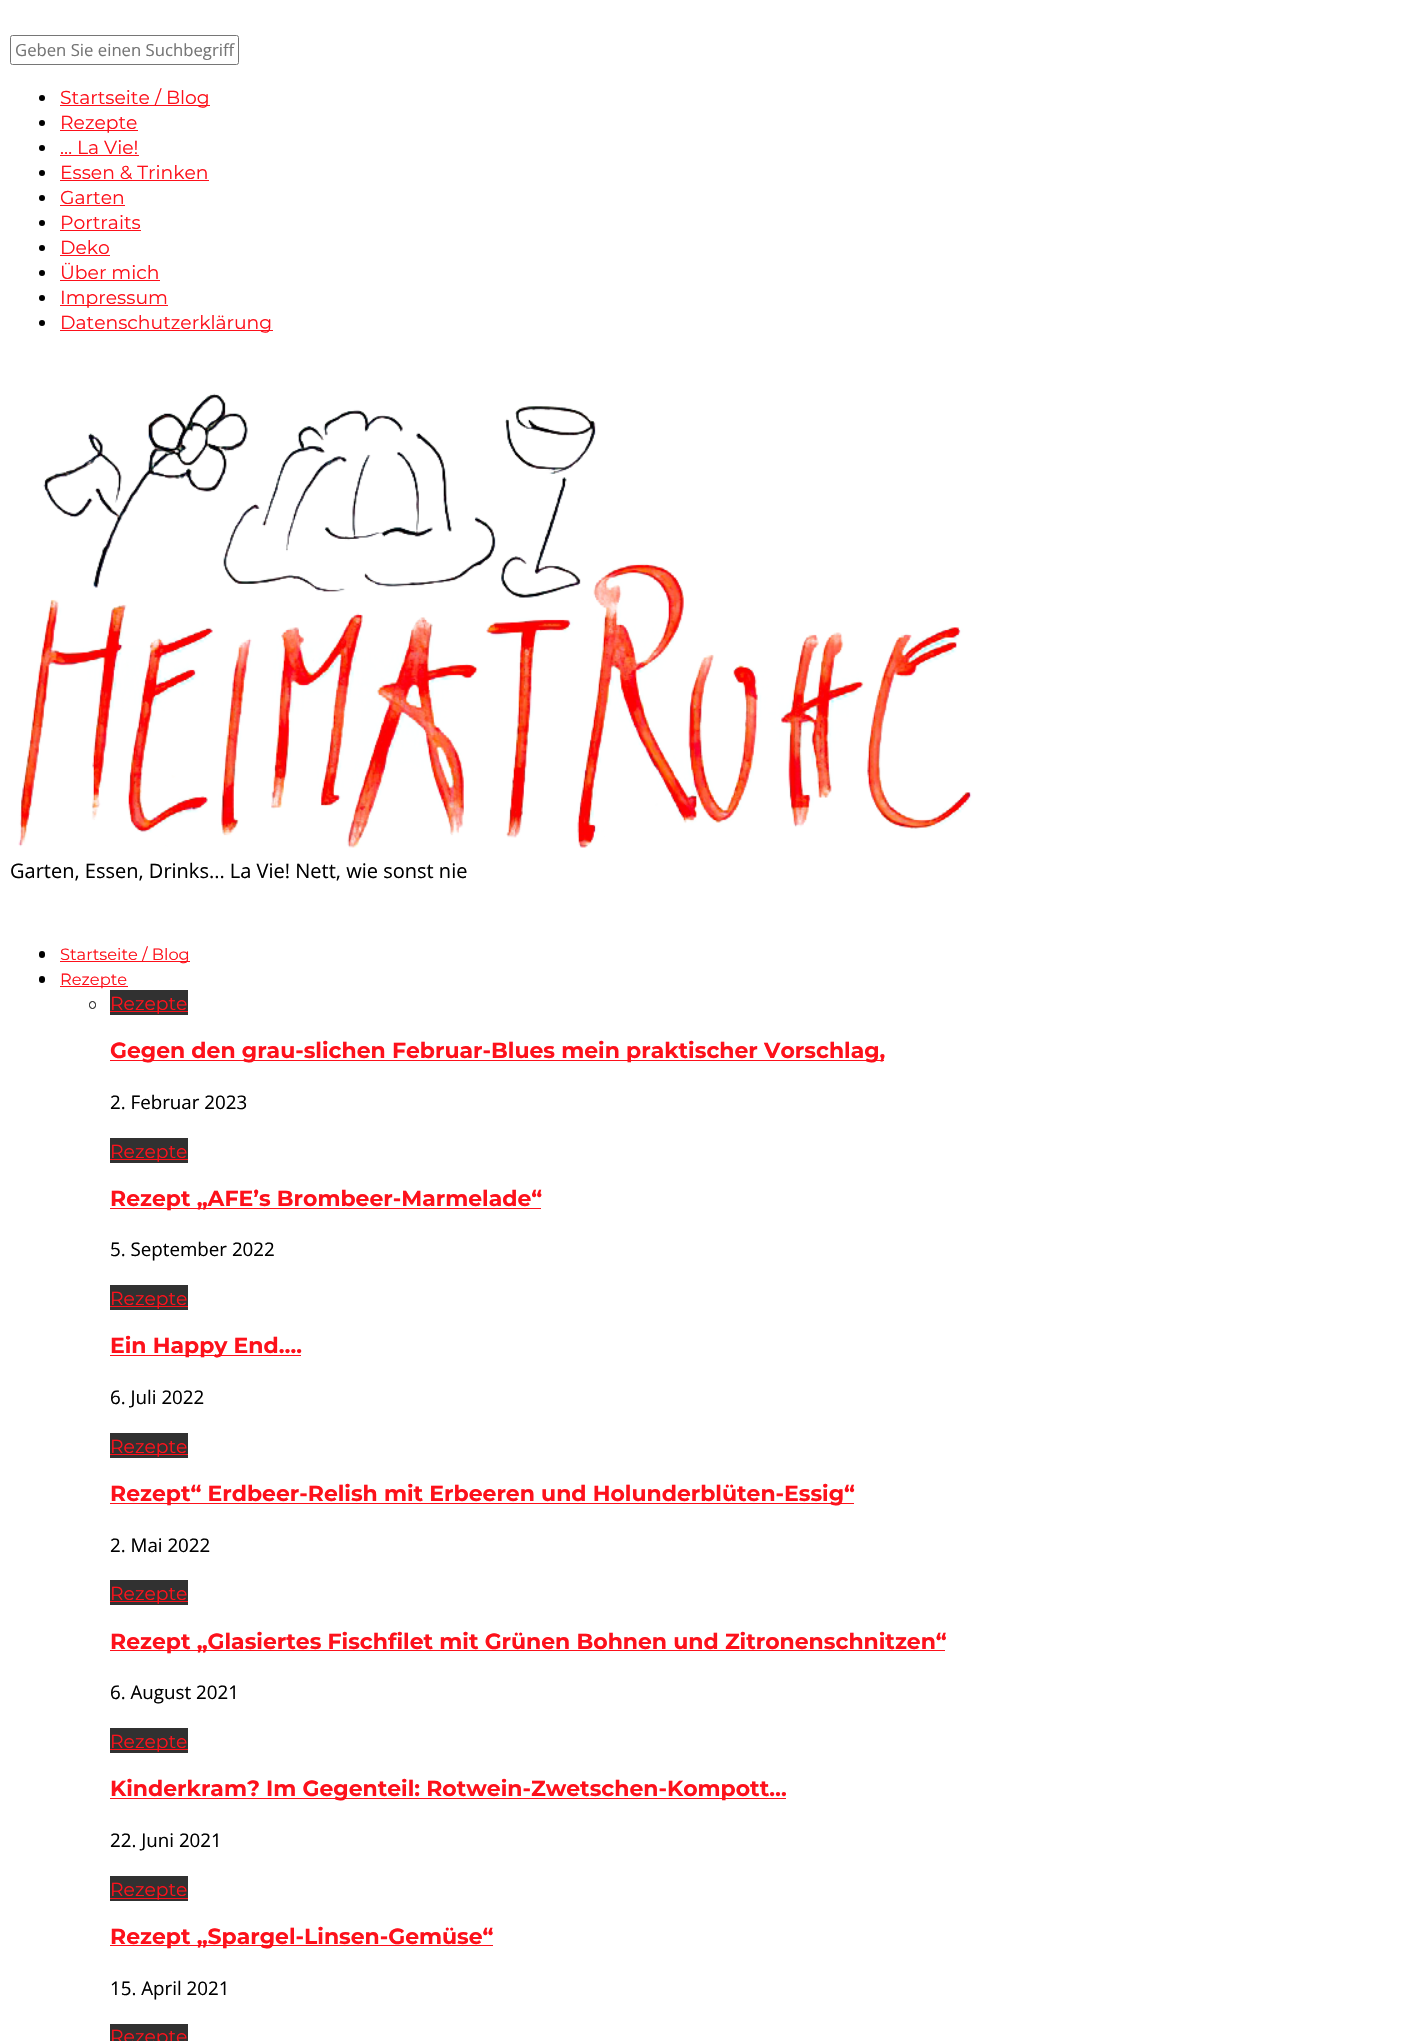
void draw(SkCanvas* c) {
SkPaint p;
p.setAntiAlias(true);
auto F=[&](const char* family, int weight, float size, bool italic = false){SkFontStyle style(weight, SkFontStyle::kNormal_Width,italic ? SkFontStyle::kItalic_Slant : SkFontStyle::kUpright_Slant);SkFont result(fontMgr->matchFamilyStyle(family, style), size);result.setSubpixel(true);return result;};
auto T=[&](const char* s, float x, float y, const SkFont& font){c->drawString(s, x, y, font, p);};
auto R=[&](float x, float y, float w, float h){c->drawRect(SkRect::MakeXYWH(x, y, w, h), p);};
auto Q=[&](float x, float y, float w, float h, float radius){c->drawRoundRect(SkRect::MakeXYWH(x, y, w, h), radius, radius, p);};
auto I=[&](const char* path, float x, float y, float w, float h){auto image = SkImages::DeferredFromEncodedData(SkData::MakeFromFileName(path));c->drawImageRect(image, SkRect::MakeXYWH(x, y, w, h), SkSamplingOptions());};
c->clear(0xffffffff);
p.setStroke(true);
p.setStrokeWidth(1);
p.setColor(0xff767676);
c->drawRoundRect(SkRect::MakeXYWH(10.5,35.5,228,29),2,2,p);
auto f1 = F("Open Sans",400,16.7);
p.setStroke(false);
p.setColor(0xff757575);
T("Geben Sie einen Suchbegriff",15,56,f1);
p.setColor(0xff000000);
c->drawCircle(42,98,3,p);
p.setColor(0xfffd111b);
R(60,105,150,1);
auto f2 = F("Montserrat",400,18.75);
T("Startseite / Blog",60,104,f2);
p.setColor(0xff000000);
c->drawCircle(42,123,3,p);
p.setColor(0xfffd111b);
R(60,130,78,1);
T("Rezepte",60,129,f2);
p.setColor(0xff000000);
c->drawCircle(42,148,3,p);
p.setColor(0xfffd111b);
T("… La Vie!",60,154,f2);
R(60,155,79,1);
p.setColor(0xff000000);
c->drawCircle(42,173,3,p);
p.setColor(0xfffd111b);
T("Essen & Trinken",60,179,f2);
R(60,180,149,1);
p.setColor(0xff000000);
c->drawCircle(42,198,3,p);
p.setColor(0xfffd111b);
T("Garten",60,204,f2);
R(60,205,65,1);
p.setColor(0xff000000);
c->drawCircle(42,223,3,p);
p.setColor(0xfffd111b);
T("Portraits",60,229,f2);
R(60,230,81,1);
p.setColor(0xff000000);
c->drawCircle(42,248,3,p);
p.setColor(0xfffd111b);
T("Deko",60,254,f2);
R(60,255,50,1);
p.setColor(0xff000000);
c->drawCircle(42,273,3,p);
p.setColor(0xfffd111b);
T("Über mich",60,279,f2);
R(60,280,100,1);
p.setColor(0xff000000);
c->drawCircle(42,298,3,p);
p.setColor(0xfffd111b);
R(60,305,108,1);
T("Impressum",60,304,f2);
p.setColor(0xff000000);
c->drawCircle(42,323,3,p);
p.setColor(0xfffd111b);
R(60,330,213,1);
T("Datenschutzerklärung",60,329,f2);
I("1.png",18,393,954,455);
auto f3 = F("Open Sans",400,20);
p.setColor(0xff000000);
T("Garten, Essen, Drinks... La Vie! Nett, wie sonst nie",10,878,f3);
Q(39,951,6,7,3);
p.setColor(0xfffd111b);
R(60,961,130,1);
auto f4 = F("Montserrat",400,16.25);
T("Startseite / Blog",60,960,f4);
p.setColor(0xff000000);
Q(39,976,6,7,3);
p.setColor(0xfffd111b);
R(60,986,68,1);
T("Rezepte",60,985,f4);
p.setStroke(true);
p.setColor(0xff000000);
c->drawRoundRect(SkRect::MakeXYWH(89.5,1001.5,6,7),3,3,p);
p.setStroke(false);
p.setColor(0xff313131);
R(110,990,78,25);
p.setColor(0xfffd111b);
R(110,1011,78,1);
T("Rezepte",110,1010,f2);
R(110,1060,774,1);
auto f5 = F("Montserrat",700,21.95);
T("Gegen den grau-slichen Februar-Blues mein praktischer Vorschlag,",110,1058,f5);
auto f6 = F("Open Sans",400,18.75);
p.setColor(0xff000000);
T("2. Februar 2023",110,1109,f6);
p.setColor(0xff313131);
R(110,1138,78,25);
p.setColor(0xfffd111b);
R(110,1159,78,1);
T("Rezepte",110,1158,f2);
R(110,1208,431,1);
T("Rezept „AFE’s Brombeer-Marmelade“",110,1206,f5);
p.setColor(0xff000000);
T("5. September 2022",110,1256,f6);
p.setColor(0xff313131);
R(110,1285,78,25);
p.setColor(0xfffd111b);
R(110,1306,78,1);
T("Rezepte",110,1305,f2);
R(110,1355,191,1);
T("Ein Happy End….",110,1353,f5);
p.setColor(0xff000000);
T("6. Juli 2022",110,1404,f6);
p.setColor(0xff313131);
R(110,1433,78,25);
p.setColor(0xfffd111b);
R(110,1454,78,1);
T("Rezepte",110,1453,f2);
R(110,1503,744,1);
T("Rezept“ Erdbeer-Relish mit Erbeeren und Holunderblüten-Essig“",110,1501,f5);
p.setColor(0xff000000);
T("2. Mai 2022",110,1552,f6);
p.setColor(0xff313131);
R(110,1580,78,25);
p.setColor(0xfffd111b);
R(110,1601,78,1);
T("Rezepte",110,1600,f2);
R(110,1650,835,1);
T("Rezept „Glasiertes Fischfilet mit Grünen Bohnen und Zitronenschnitzen“",110,1649,f5);
p.setColor(0xff000000);
T("6. August 2021",110,1699,f6);
p.setColor(0xff313131);
R(110,1728,78,25);
p.setColor(0xfffd111b);
R(110,1749,78,1);
T("Rezepte",110,1748,f2);
R(110,1798,676,1);
T("Kinderkram? Im Gegenteil: Rotwein-Zwetschen-Kompott…",110,1796,f5);
p.setColor(0xff000000);
T("22. Juni 2021",110,1847,f6);
p.setColor(0xff313131);
R(110,1876,78,25);
p.setColor(0xfffd111b);
R(110,1898,78,1);
T("Rezepte",110,1896,f2);
R(110,1945,383,1);
T("Rezept „Spargel-Linsen-Gemüse“",110,1944,f5);
p.setColor(0xff000000);
T("15. April 2021",110,1995,f6);
p.setColor(0xff313131);
R(110,2024,78,17);
p.setColor(0xfffd111b);
T("Rezepte",110,2043,f2);
}
